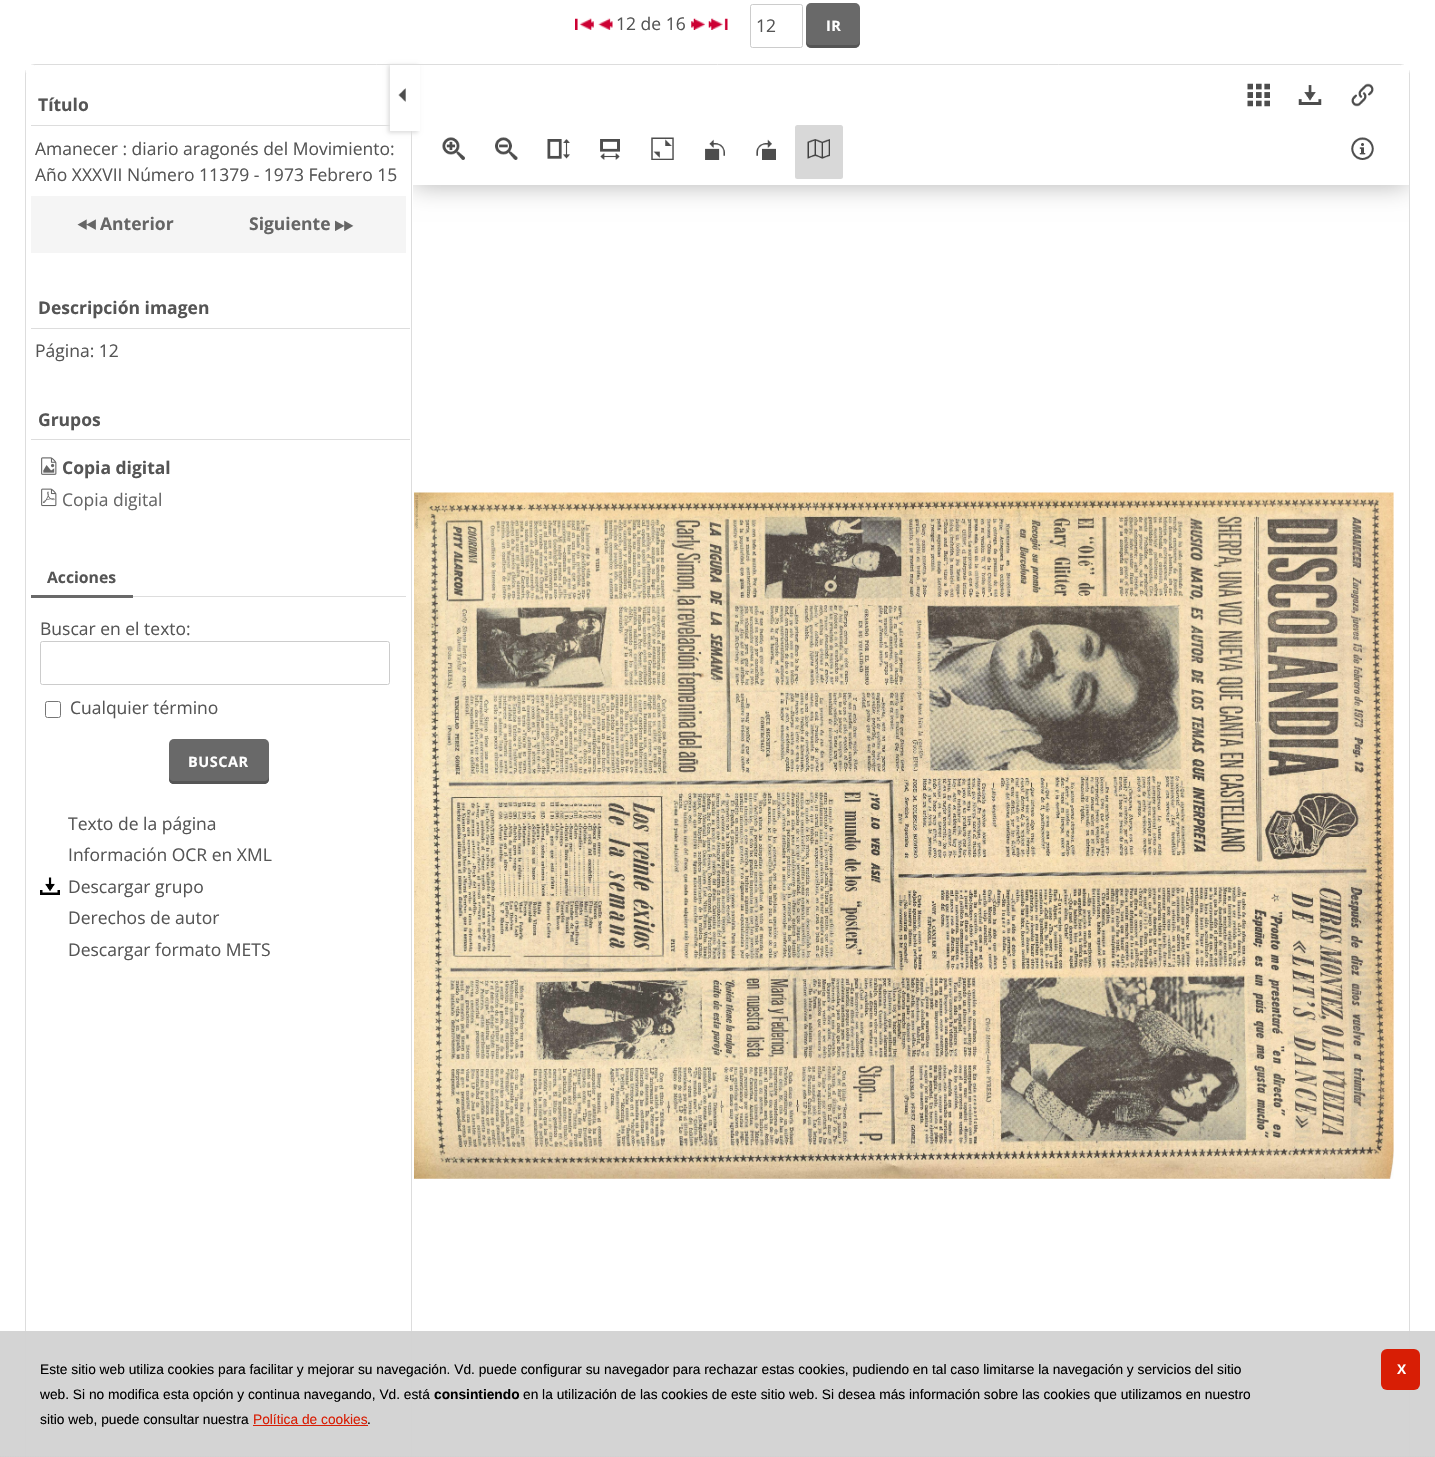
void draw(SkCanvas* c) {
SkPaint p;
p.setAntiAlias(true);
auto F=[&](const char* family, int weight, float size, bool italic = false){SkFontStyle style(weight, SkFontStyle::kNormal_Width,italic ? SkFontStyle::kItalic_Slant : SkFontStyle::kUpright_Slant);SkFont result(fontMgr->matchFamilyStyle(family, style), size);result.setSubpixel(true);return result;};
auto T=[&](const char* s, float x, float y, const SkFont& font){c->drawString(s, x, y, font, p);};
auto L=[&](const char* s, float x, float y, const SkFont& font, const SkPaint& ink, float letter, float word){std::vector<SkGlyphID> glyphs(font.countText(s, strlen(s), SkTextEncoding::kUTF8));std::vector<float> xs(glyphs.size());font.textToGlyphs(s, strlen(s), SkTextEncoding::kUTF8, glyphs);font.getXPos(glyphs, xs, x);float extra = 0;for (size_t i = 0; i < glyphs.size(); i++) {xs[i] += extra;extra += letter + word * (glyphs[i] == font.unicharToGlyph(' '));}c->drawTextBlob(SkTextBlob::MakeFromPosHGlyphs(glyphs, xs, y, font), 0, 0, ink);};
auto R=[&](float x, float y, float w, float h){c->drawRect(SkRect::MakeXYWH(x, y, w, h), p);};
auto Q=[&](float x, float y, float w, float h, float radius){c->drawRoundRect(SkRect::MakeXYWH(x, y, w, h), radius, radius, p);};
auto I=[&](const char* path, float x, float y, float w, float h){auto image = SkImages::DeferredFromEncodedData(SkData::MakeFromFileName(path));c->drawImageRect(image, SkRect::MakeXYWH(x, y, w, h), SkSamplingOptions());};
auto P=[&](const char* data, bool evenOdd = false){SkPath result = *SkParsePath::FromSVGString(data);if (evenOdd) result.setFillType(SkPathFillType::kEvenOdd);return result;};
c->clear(0xffffffff);
I("1.png",575,18,19,12);
I("2.png",598,18,15,12);
auto f1 = F("Open Sans",400,17.5);
p.setColor(0xff555555);
T("12 de 16",616,30,f1);
I("3.png",691,18,14,12);
I("4.png",708,18,20,12);
p.setStroke(true);
p.setStrokeWidth(1);
p.setColor(0xffcccccc);
c->drawRoundRect(SkRect::MakeXYWH(750.5,4.5,52,43),2,2,p);
p.setStroke(false);
p.setColor(0xff555555);
T("12",756,32,f1);
p.setColor(0xff696969);
Q(806,3,54,45,5);
p.setColor(0xff555555);
c->drawPath(P("M806 40c0 9 4 8 12 8h30c8 0 12 1 12-8c0 3-2 5-5 5h-44c-3 0-5-2-5-5z"),p);
auto f2 = F("Open Sans",700,14.5);
p.setColor(0xffffffff);
L("IR",826,31,f2,p,.5,0);
p.setStroke(true);
p.setColor(0xffdddddd);
c->drawRoundRect(SkRect::MakeXYWH(25.5,64.5,1384,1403),9.5,9.5,p);
p.setStroke(false);
p.setColor(0xffffffff);
R(26,65,8,8);
p.setColor(0xffdddddd);
R(411,131,1,1326);
R(31,125,359,1);
auto f3 = F("Open Sans",700,17.5);
p.setColor(0xff555555);
T("Título",38,111,f3);
T("Amanecer : diario aragonés del Movimiento:",35,155,f1);
T("Año XXXVII Número 11379 - 1973 Febrero 15",35,181,f1);
p.setColor(0xfff5f5f5);
R(31,196,375,57);
I("5.png",77,219,19,11);
p.setColor(0xff666666);
T("Anterior",100,230,f3);
T("Siguiente",249,230,f3);
I("6.png",335,220,19,11);
p.setColor(0xffdddddd);
R(31,328,379,1);
p.setColor(0xff555555);
T("Descripción imagen",38,314,f3);
T("Página: 12",35,357,f1);
p.setColor(0xffdddddd);
R(31,439,379,1);
p.setColor(0xff555555);
T("Grupos",38,426,f3);
I("7.png",41,457,16,18);
T("Copia digital",62,474,f3);
I("8.png",41,488,16,19);
p.setColor(0xff666666);
T("Copia digital",62,506,f1);
p.setColor(0xffdddddd);
R(133,596,273,1);
p.setColor(0xff696969);
R(31,595,102,3);
auto f4 = F("Open Sans",700,15.75);
p.setColor(0xff555555);
T("Acciones",47,583,f4);
T("Buscar en el texto:",40,635,f1);
p.setStroke(true);
p.setColor(0xffcccccc);
c->drawRoundRect(SkRect::MakeXYWH(40.5,641.5,349,43),2,2,p);
p.setColor(0xff767676);
c->drawRoundRect(SkRect::MakeXYWH(45.5,701.5,15,16),2,2,p);
p.setStroke(false);
p.setColor(0xff555555);
T("Cualquier término",70,714,f1);
p.setColor(0xff696969);
Q(169,739,100,45,5);
p.setColor(0xff555555);
c->drawPath(P("M169 776v3c0 3 2 5 5 5h90c3 0 5-2 5-5v-3c0 3-2 5-5 5h-90c-3 0-5-2-5-5z"),p);
p.setColor(0xffffffff);
L("BUSCAR",188,767,f2,p,.5,0);
p.setColor(0xff555555);
T("Texto de la página",68,830,f1);
T("Información OCR en XML",68,861,f1);
I("9.png",40,877,20,18);
T("Descargar grupo",68,893,f1);
T("Derechos de autor",68,924,f1);
T("Descargar formato METS",68,956,f1);
p.setColor(0xffdddddd);
p.setMaskFilter(SkMaskFilter::MakeBlur(kNormal_SkBlurStyle, 2));
c->drawRect(SkRect::MakeXYWH(388,65,30,68),p);
p.setMaskFilter(nullptr);
p.setColor(0xffffffff);
R(390,65,30,66);
I("10.png",398,88,8,14);
R(1401,65,8,8);
c->save();
c->clipRect(SkRect::MakeXYWH(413,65,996,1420));
c->clipPath(P("M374 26h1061v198h-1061zm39 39h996v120h-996z",true),true);
p.setColor(0x4d000000);
p.setMaskFilter(SkMaskFilter::MakeBlur(kNormal_SkBlurStyle, 12.5));
c->drawRect(SkRect::MakeXYWH(413,65,996,120),p);
p.setMaskFilter(nullptr);
c->restore();
I("11.png",442,137,23,23);
I("12.png",495,137,23,23);
I("13.png",547,139,23,20);
I("14.png",600,139,20,21);
I("15.png",651,137,23,23);
I("16.png",705,139,20,21);
I("17.png",756,139,20,21);
p.setColor(0xffd8d8d8);
Q(795,125,48,54,2.5);
I("18.png",807,139,23,20);
I("19.png",1247,83,23,24);
I("20.png",1298,85,24,20);
I("21.png",1351,83,23,24);
I("22.png",1351,137,23,23);
I("23.png",414,492,980,687);
p.setColor(0xf2d2d2d2);
R(0,1331,1435,126);
p.setStroke(true);
p.setStrokeWidth(1.2);
p.setColor(0xffcccccc);
p.setPathEffect(SkDashPathEffect::Make({{1.25f,1.25f}}, 0));
c->drawPath(P("M0 1457h1435"),p);
p.setPathEffect(nullptr);
auto f5 = F("Liberation Sans",400,13.75);
p.setStroke(false);
p.setColor(0xff000000);
T("Este sitio web utiliza cookies para facilitar y mejorar su navegación. Vd. puede configurar su navegador para rechazar estas cookies, pudiendo en tal caso limitarse la navegación y servicios del sitio",40,1374,f5);
T("web. Si no modifica esta opción y continua navegando, Vd. está",40,1399,f5);
auto f6 = F("Liberation Sans",700,13.75);
T("consintiendo",434,1399,f6);
T("en la utilización de las cookies de este sitio web. Si desea más información sobre las cookies que utilizamos en nuestro",523,1399,f5);
T("sitio web, puede consultar nuestra",40,1424,f5);
p.setColor(0xffd81e05);
T("Política de cookies",253,1424,f5);
p.setColor(0xff000000);
T(".",367,1424,f5);
p.setColor(0xffd81e05);
R(253,1425,115,1);
Q(1381,1349,39,41,6);
p.setColor(0xffffffff);
L("X",1397,1374,f6,p,-1,0);
}
